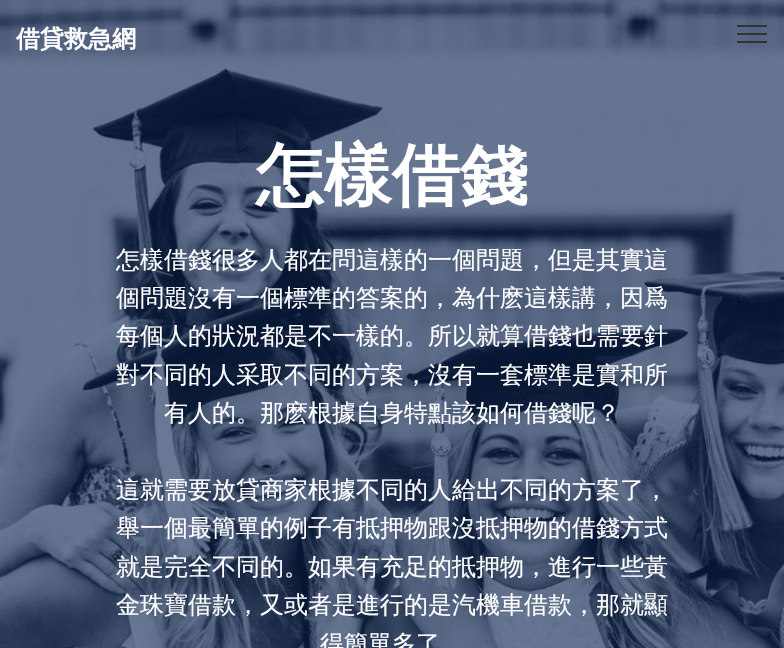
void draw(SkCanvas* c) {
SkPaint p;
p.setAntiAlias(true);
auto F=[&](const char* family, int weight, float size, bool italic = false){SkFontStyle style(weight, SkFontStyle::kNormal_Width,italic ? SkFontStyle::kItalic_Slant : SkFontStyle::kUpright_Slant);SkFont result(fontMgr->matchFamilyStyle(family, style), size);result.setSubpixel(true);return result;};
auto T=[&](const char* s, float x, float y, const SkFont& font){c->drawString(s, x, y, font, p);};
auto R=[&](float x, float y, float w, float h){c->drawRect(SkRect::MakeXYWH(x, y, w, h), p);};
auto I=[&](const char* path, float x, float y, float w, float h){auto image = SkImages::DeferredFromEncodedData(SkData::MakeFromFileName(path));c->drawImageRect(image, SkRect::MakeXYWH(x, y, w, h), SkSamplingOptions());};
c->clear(0xffffffff);
I("1.png",0,0,784,648);
auto f1 = F("WenQuanYi Zen Hei",700,24);
p.setColor(0xffffffff);
T("借貸救急網",16,47,f1);
p.setColor(0xff333333);
R(737,25,30,2);
R(737,33,30,2);
R(737,41,30,2);
auto f2 = F("WenQuanYi Zen Hei",700,68);
p.setColor(0xffffffff);
T("怎樣借錢",256,199,f2);
auto f3 = F("WenQuanYi Zen Hei",500,24);
T("怎樣借錢很多人都在問這樣的一個問題，但是其實這",116,268,f3);
T("個問題沒有一個標準的答案的，為什麽這樣講，因爲",116,306,f3);
T("每個人的狀況都是不一樣的。所以就算借錢也需要針",116,344,f3);
T("對不同的人采取不同的方案，沒有一套標準是實和所",116,383,f3);
T("有人的。那麽根據自身特點該如何借錢呢？",164,421,f3);
T("這就需要放貸商家根據不同的人給出不同的方案了，",116,498,f3);
T("舉一個最簡單的例子有抵押物跟沒抵押物的借錢方式",116,536,f3);
T("就是完全不同的。如果有充足的抵押物，進行一些黃",116,575,f3);
T("金珠寶借款，又或者是進行的是汽機車借款，那就顯",116,613,f3);
T("得簡單多了",320,652,f3);
}
